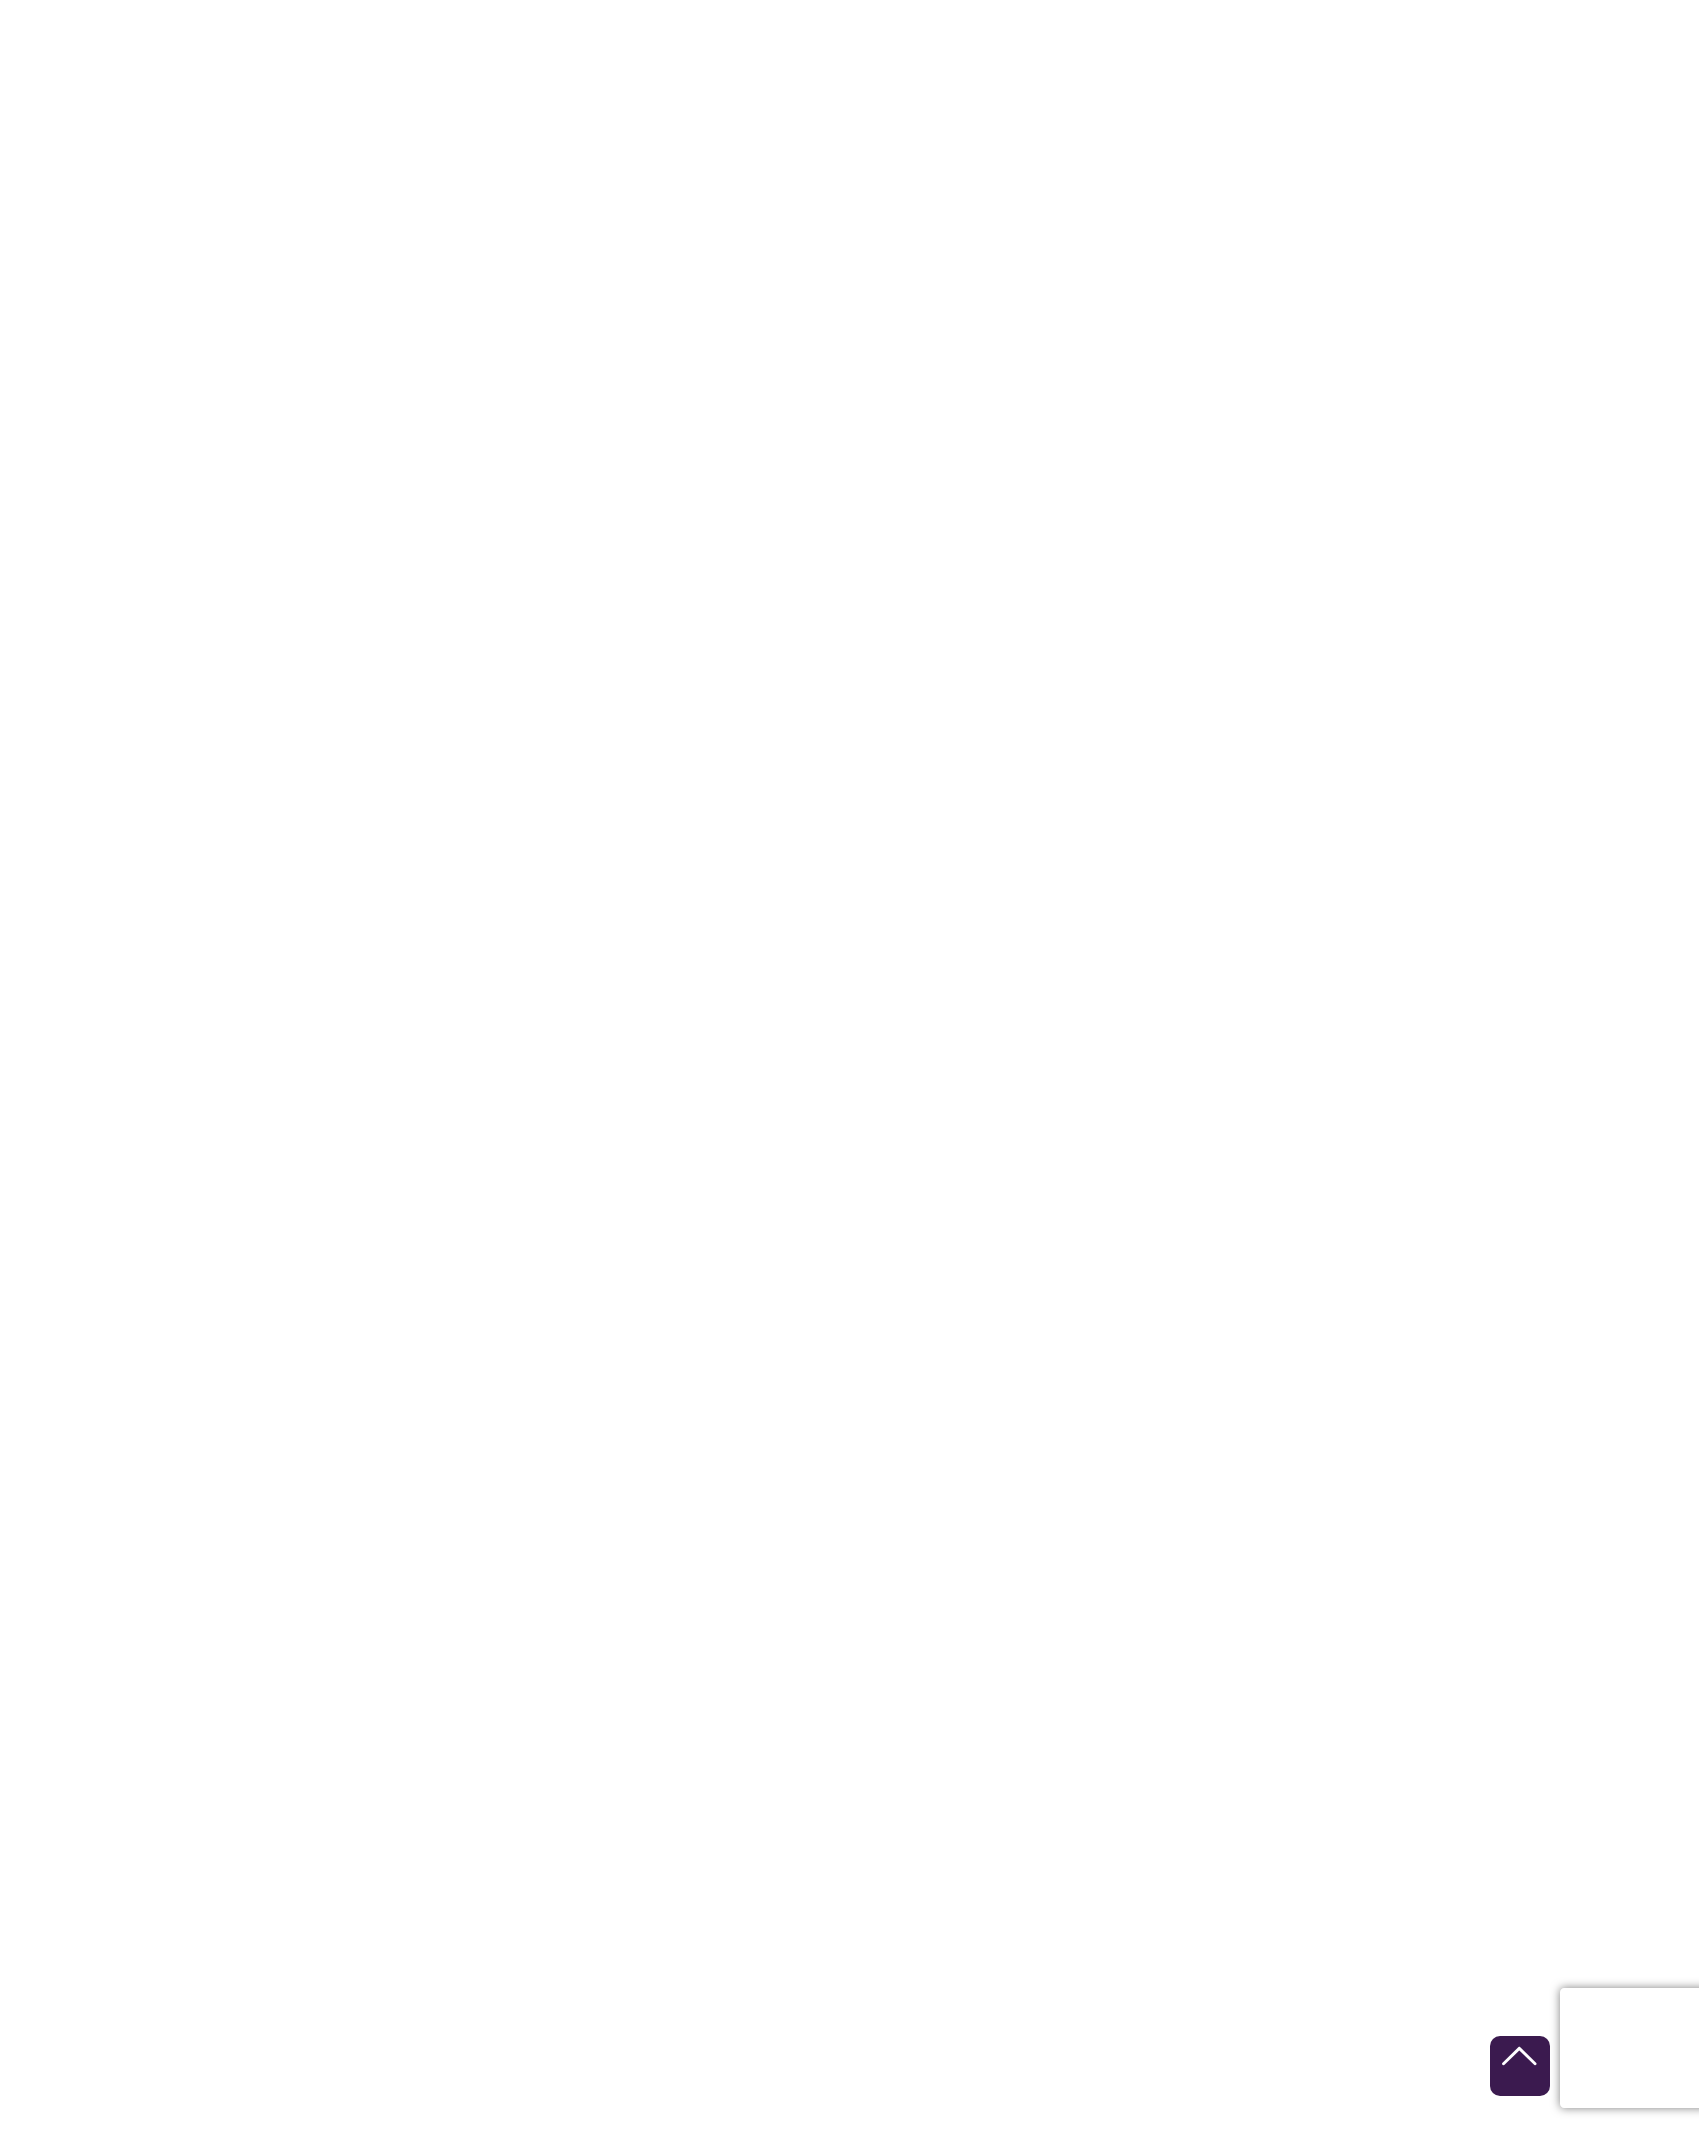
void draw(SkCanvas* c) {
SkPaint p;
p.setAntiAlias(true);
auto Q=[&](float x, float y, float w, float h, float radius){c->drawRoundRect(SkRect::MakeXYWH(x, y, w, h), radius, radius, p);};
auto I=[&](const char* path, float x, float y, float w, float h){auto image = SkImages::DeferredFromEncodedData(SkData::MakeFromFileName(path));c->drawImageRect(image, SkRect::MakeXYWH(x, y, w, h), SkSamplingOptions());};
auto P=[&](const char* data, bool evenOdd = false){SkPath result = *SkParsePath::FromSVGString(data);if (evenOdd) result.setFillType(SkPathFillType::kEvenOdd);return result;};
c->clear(0xffffffff);
c->save();
c->clipPath(P("M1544 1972h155v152h-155zm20 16h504c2 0 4 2 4 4v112c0 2-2 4-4 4h-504c-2 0-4-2-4-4v-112c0-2 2-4 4-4z",true),true);
p.setColor(0xff808080);
p.setMaskFilter(SkMaskFilter::MakeBlur(kNormal_SkBlurStyle, 5));
c->drawRoundRect(SkRect::MakeXYWH(1560,1988,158,120),4,4,p);
p.setMaskFilter(nullptr);
c->restore();
p.setColor(0xff3b1a4f);
Q(1490,2036,60,60,10);
I("1.png",1502,2046,35,20);
}
